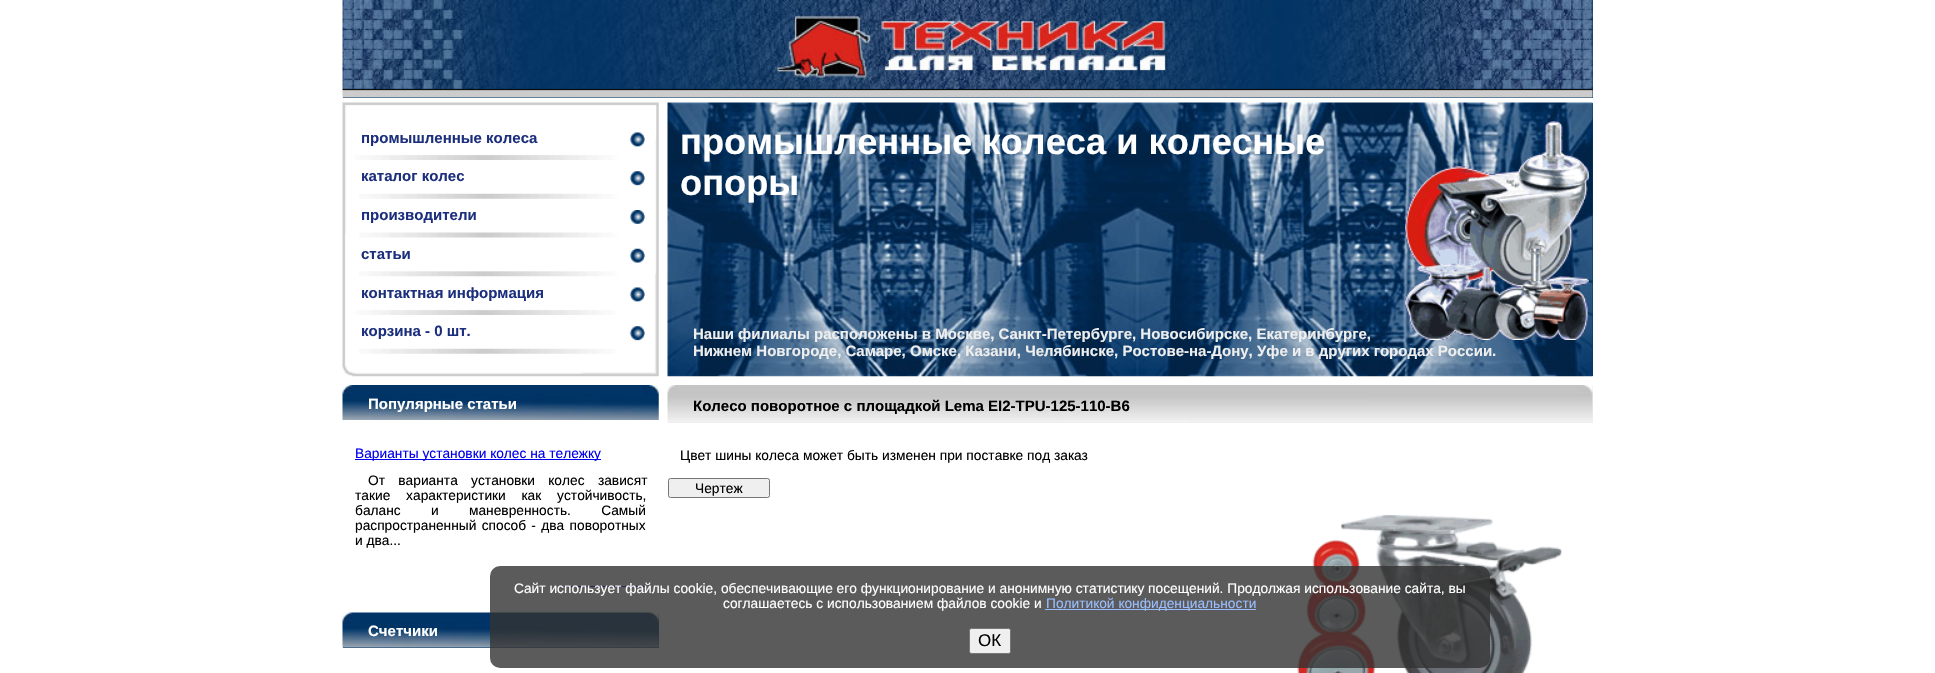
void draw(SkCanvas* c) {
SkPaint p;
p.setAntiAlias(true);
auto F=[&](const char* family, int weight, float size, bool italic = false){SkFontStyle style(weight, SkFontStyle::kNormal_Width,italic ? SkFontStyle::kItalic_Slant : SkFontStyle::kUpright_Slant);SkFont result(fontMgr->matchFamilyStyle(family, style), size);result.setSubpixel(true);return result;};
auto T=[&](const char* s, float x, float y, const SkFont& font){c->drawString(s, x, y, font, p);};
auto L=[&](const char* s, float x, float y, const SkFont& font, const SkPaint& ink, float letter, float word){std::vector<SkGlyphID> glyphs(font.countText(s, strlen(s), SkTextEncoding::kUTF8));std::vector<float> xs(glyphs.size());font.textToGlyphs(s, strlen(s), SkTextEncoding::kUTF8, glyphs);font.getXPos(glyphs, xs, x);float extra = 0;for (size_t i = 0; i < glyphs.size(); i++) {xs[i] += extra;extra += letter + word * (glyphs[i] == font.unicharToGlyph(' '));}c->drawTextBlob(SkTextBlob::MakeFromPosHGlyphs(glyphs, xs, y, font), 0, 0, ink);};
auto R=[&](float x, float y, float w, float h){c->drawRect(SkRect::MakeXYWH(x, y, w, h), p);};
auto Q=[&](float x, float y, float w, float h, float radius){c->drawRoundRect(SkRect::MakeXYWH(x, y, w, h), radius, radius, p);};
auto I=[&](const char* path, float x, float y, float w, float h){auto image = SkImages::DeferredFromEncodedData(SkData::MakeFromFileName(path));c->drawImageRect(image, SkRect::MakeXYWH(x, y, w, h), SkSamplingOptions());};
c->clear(0xffffffff);
p.setColor(0xff003366);
R(343,0,1250,98);
I("1.png",342,88,1251,10);
I("2.png",342,0,1251,89);
I("3.png",342,102,317,275);
I("4.png",355,132,290,28);
auto f1 = F("Liberation Sans",700,15);
p.setColor(0xff1c2f7d);
T("промышленные колеса",361,143,f1);
I("5.png",359,171,286,28);
T("каталог колес",361,181,f1);
I("6.png",359,210,286,28);
T("производители",361,220,f1);
I("7.png",359,248,286,29);
T("статьи",361,259,f1);
I("8.png",355,287,290,28);
T("контактная информация",361,298,f1);
I("5.png",359,326,286,28);
T("корзина - 0 шт.",361,336,f1);
p.setColor(0xff003366);
R(1592,103,1,273);
I("9.png",667,102,926,275);
auto f2 = F("Liberation Sans",700,36.25);
p.setColor(0xffffffff);
T("промышленные колеса и колесные",680,154,f2);
T("опоры",680,195,f2);
I("10.png",1405,121,184,219);
p.setColor(0xffeeeeee);
T("Наши филиалы расположены в Москве, Санкт-Петербурге, Новосибирске, Екатеринбурге,",693,339,f1);
T("Нижнем Новгороде, Самаре, Омске, Казани, Челябинске, Ростове-на-Дону, Уфе и в других городах России.",693,356,f1);
I("11.png",342,385,317,35);
p.setColor(0xffffffff);
T("Популярные статьи",368,409,f1);
p.setColor(0xff0000ee);
R(355,459,246,1);
auto f3 = F("Liberation Sans",400,13.75);
T("Варианты установки колес на тележку",355,458,f3);
p.setColor(0xff000000);
L("От варианта установки колес зависят",368,485,f3,p,0,9.5);
L("такие характеристики как устойчивость,",355,500,f3,p,0,12);
L("баланс и маневренность. Самый",355,515,f3,p,0,26.5);
L("распространенный способ - два поворотных",355,530,f3,p,0,1.5);
T("и два...",355,545,f3);
p.setColor(0xff0000ee);
R(564,586,82,1);
p.setColor(0xff003366);
R(343,613,316,35);
I("12.png",342,612,317,36);
p.setColor(0xffffffff);
T("Счетчики",368,636,f1);
p.setColor(0xffeeeeee);
R(668,385,925,38);
I("13.png",667,385,926,37);
p.setColor(0xff000000);
T("Колесо поворотное с площадкой Lema EI2-TPU-125-110-B6",693,411,f1);
T("Цвет шины колеса может быть изменен при поставке под заказ",680,460,f3);
p.setColor(0xffefefef);
c->drawRoundRect(SkRect::MakeXYWH(668.5,478.5,101,19),2,2,p);
p.setStroke(true);
p.setStrokeWidth(1);
p.setColor(0xff767676);
c->drawRoundRect(SkRect::MakeXYWH(668.5,478.5,101,19),2,2,p);
p.setStroke(false);
p.setColor(0xff000000);
T("Чертеж",695,493,f3);
I("14.png",1297,514,265,159);
p.setColor(0xcc323232);
Q(490,566,1000,102,10);
p.setColor(0xffffffff);
T("Сайт использует файлы cookie, обеспечивающие его функционирование и анонимную статистику посещений. Продолжая использование сайта, вы",514,593,f3);
T("соглашаетесь с использованием файлов cookie и",723,608,f3);
p.setColor(0xff99bdff);
R(1045,609,211,1);
T("Политикой конфиденциальности",1046,608,f3);
p.setColor(0xffefefef);
c->drawRoundRect(SkRect::MakeXYWH(969.5,628.5,41,25),2,2,p);
p.setStroke(true);
p.setColor(0xff767676);
c->drawRoundRect(SkRect::MakeXYWH(969.5,628.5,41,25),2,2,p);
auto f4 = F("Liberation Sans",400,17);
p.setStroke(false);
p.setColor(0xff000000);
T("ОК",978,646,f4);
}
